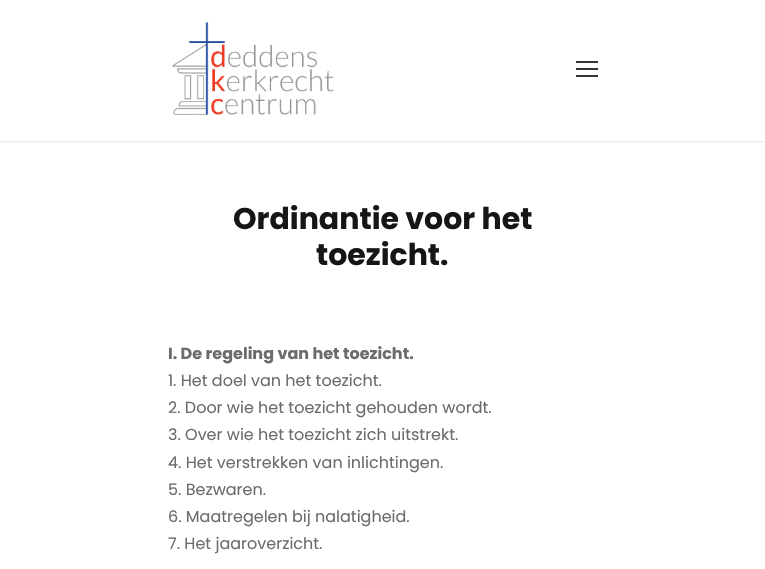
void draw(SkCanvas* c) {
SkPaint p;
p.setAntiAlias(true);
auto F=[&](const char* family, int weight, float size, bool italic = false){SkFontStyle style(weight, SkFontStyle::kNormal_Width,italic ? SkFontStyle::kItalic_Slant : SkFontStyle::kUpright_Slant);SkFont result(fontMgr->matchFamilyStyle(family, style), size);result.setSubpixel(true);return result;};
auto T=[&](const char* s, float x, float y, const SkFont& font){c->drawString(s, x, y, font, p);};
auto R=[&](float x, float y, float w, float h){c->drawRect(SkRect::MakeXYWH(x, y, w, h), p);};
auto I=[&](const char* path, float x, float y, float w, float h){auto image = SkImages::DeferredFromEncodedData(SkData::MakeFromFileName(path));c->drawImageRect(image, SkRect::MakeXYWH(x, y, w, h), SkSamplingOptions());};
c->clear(0xffffffff);
c->save();
c->clipRect(SkRect::MakeXYWH(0,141,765,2));
p.setColor(0x1a000000);
p.setMaskFilter(SkMaskFilter::MakeBlur(kNormal_SkBlurStyle, 1));
c->drawRect(SkRect::MakeXYWH(0,1,765,141),p);
p.setMaskFilter(nullptr);
c->restore();
I("1.png",172,22,162,93);
p.setColor(0xff333333);
R(576,61,22,2);
R(576,68,22,2);
R(576,75,22,2);
auto f1 = F("Poppins",700,30);
p.setColor(0xff161616);
T("Ordinantie voor het",233,229,f1);
T("toezicht.",316,265,f1);
auto f2 = F("Poppins",700,16);
p.setColor(0xff6b6b6b);
T("I. De regeling van het toezicht.",168,359,f2);
auto f3 = F("Poppins",400,16);
T("1. Het doel van het toezicht.",168,386,f3);
T("2. Door wie het toezicht gehouden wordt.",168,413,f3);
T("3. Over wie het toezicht zich uitstrekt.",168,440,f3);
T("4. Het verstrekken van inlichtingen.",168,468,f3);
T("5. Bezwaren.",168,495,f3);
T("6. Maatregelen bij nalatigheid.",168,522,f3);
T("7. Het jaaroverzicht.",168,549,f3);
}
